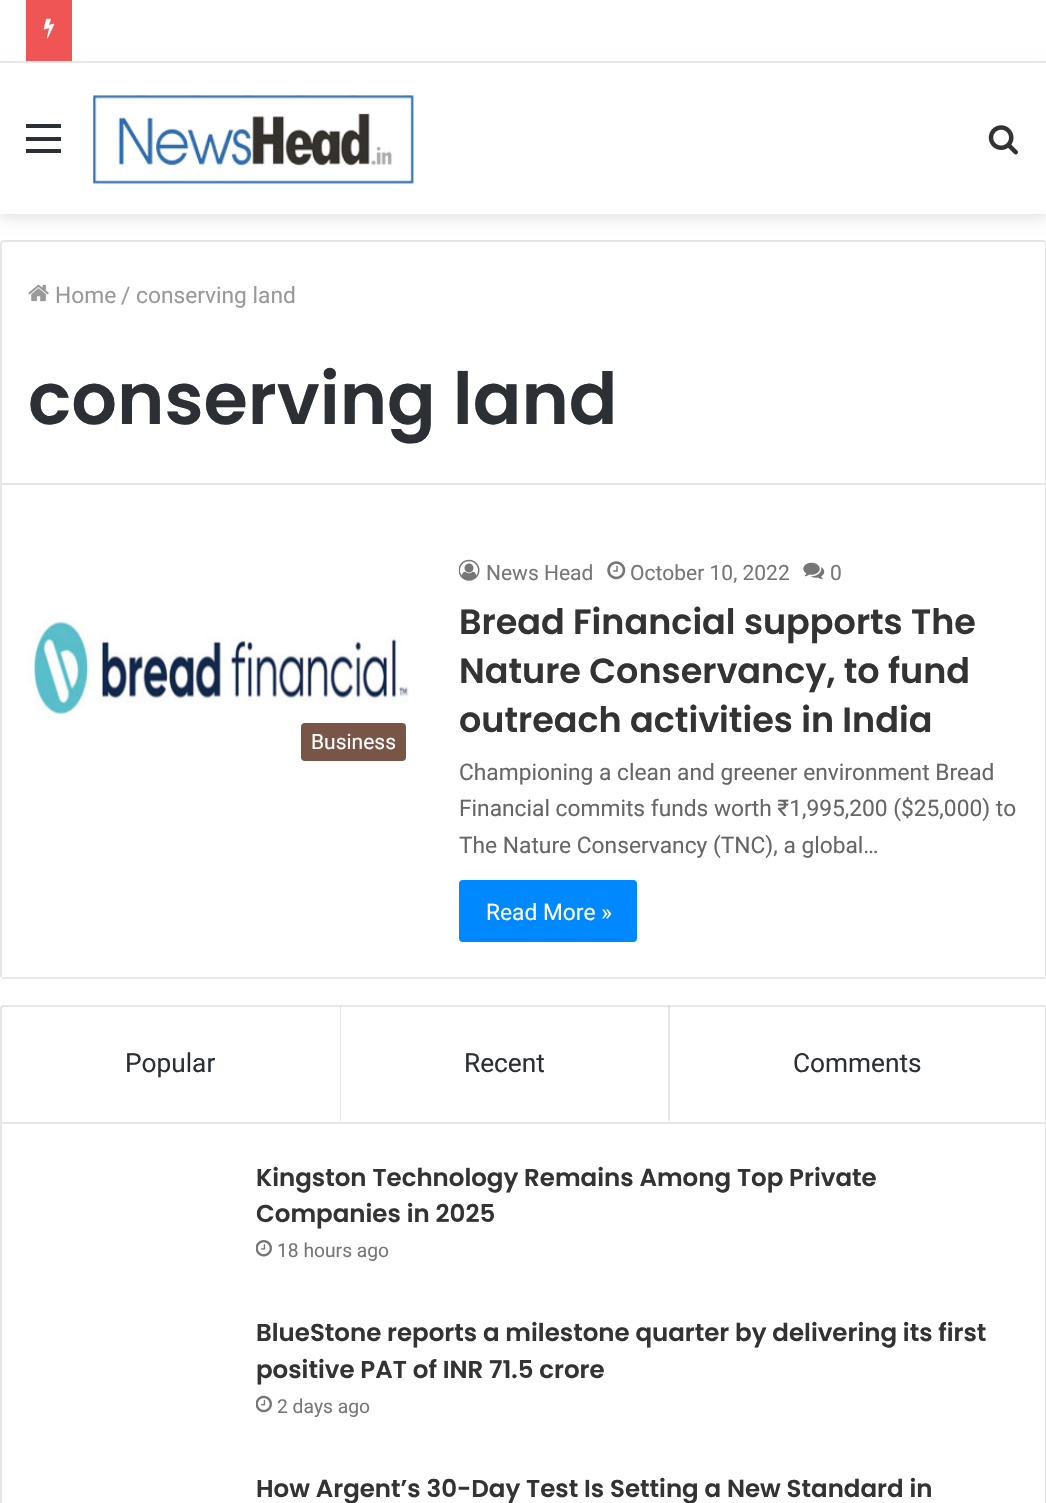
void draw(SkCanvas* c) {
SkPaint p;
p.setAntiAlias(true);
auto F=[&](const char* family, int weight, float size, bool italic = false){SkFontStyle style(weight, SkFontStyle::kNormal_Width,italic ? SkFontStyle::kItalic_Slant : SkFontStyle::kUpright_Slant);SkFont result(fontMgr->matchFamilyStyle(family, style), size);result.setSubpixel(true);return result;};
auto T=[&](const char* s, float x, float y, const SkFont& font){c->drawString(s, x, y, font, p);};
auto R=[&](float x, float y, float w, float h){c->drawRect(SkRect::MakeXYWH(x, y, w, h), p);};
auto Q=[&](float x, float y, float w, float h, float radius){c->drawRoundRect(SkRect::MakeXYWH(x, y, w, h), radius, radius, p);};
auto I=[&](const char* path, float x, float y, float w, float h){auto image = SkImages::DeferredFromEncodedData(SkData::MakeFromFileName(path));c->drawImageRect(image, SkRect::MakeXYWH(x, y, w, h), SkSamplingOptions());};
auto P=[&](const char* data, bool evenOdd = false){SkPath result = *SkParsePath::FromSVGString(data);if (evenOdd) result.setFillType(SkPathFillType::kEvenOdd);return result;};
c->clear(0xffffffff);
p.setColor(0x1a000000);
p.setMaskFilter(SkMaskFilter::MakeBlur(kNormal_SkBlurStyle, 6));
c->drawRect(SkRect::MakeXYWH(0,68,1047,151),p);
p.setMaskFilter(nullptr);
p.setColor(0xffffffff);
R(10,60,1027,1);
p.setColor(0xffe6e6e6);
R(0,61,1046,2);
p.setColor(0xfff05555);
R(26,0,46,61);
I("1.png",43,18,12,21);
p.setColor(0xffffffff);
R(0,63,1046,151);
p.setColor(0xff2c2f34);
R(26,137,35,4);
R(26,124,35,4);
R(26,149,35,4);
I("2.png",93,95,321,89);
I("3.png",988,125,30,30);
p.setStroke(true);
p.setStrokeWidth(2);
p.setColor(0xffe6e6e6);
c->drawPath(P("M4 241h1039c1.5 0 3 1.5 3 3v240h-1045v-240c0-1.5 1.5-3 3-3z"),p);
I("4.png",28,284,21,18);
auto f1 = F("Roboto",400,22.75);
p.setStroke(false);
p.setColor(0xff999999);
T("Home",55,303,f1);
T("/",121,303,f1);
T("conserving land",136,303,f1);
auto f2 = F("Poppins",600,71.75);
p.setColor(0xff2c2f34);
T("conserving land",28,424,f2);
p.setColor(0xffe6e6e6);
R(1045,485,1,492);
R(2,977,1043,2);
R(0,485,2,492);
I("5.png",28,620,381,98);
p.setColor(0xff795548);
Q(301,723,105,38,4);
auto f3 = F("Roboto",400,21);
p.setColor(0xffffffff);
T("Business",311,749,f3);
I("6.png",459,559,21,22);
p.setColor(0xff767676);
T("News Head",486,580,f3);
I("7.png",607,561,19,19);
T("October 10, 2022",630,580,f3);
I("8.png",803,562,22,18);
T("0",830,580,f3);
auto f4 = F("Poppins",600,35);
p.setColor(0xff333333);
T("Bread Financial supports The",459,634,f4);
T("Nature Conservancy, to fund",459,683,f4);
T("outreach activities in India",459,732,f4);
p.setColor(0xff666666);
T("Championing a clean and greener environment Bread",459,780,f1);
T("Financial commits funds worth ₹1,995,200 ($25,000) to",459,816,f1);
T("The Nature Conservancy (TNC), a global…",459,853,f1);
p.setColor(0xff0088ff);
Q(459,880,178,62,4);
p.setColor(0xffffffff);
T("Read More »",486,920,f1);
p.setStroke(true);
p.setColor(0xffe6e6e6);
c->drawRoundRect(SkRect::MakeXYWH(1,1006,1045,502),3,3,p);
p.setStroke(false);
R(2,1122,1043,2);
p.setColor(0x1a000000);
c->drawPath(P("M341 1006v116l-1-2v-114z"),p);
auto f5 = F("Roboto",400,26.25);
p.setColor(0xff2c2f34);
T("Popular",125,1072,f5);
p.setColor(0x1a000000);
c->drawPath(P("M670 1006v116l-2-2v-114z"),p);
p.setColor(0xff2c2f34);
T("Recent",464,1072,f5);
T("Comments",793,1072,f5);
auto f6 = F("Poppins",600,24.5);
p.setColor(0xff333333);
T("Kingston Technology Remains Among Top Private",256,1186,f6);
T("Companies in 2025",256,1222,f6);
I("9.png",256,1240,16,17);
auto f7 = F("Roboto",400,19.25);
p.setColor(0xff767676);
T("18 hours ago",277,1257,f7);
p.setColor(0xff333333);
T("BlueStone reports a milestone quarter by delivering its first",256,1341,f6);
T("positive PAT of INR 71.5 crore",256,1378,f6);
I("10.png",256,1395,16,18);
p.setColor(0xff767676);
T("2 days ago",277,1413,f7);
p.setColor(0xff333333);
T("How Argent’s 30-Day Test Is Setting a New Standard in",256,1497,f6);
}
